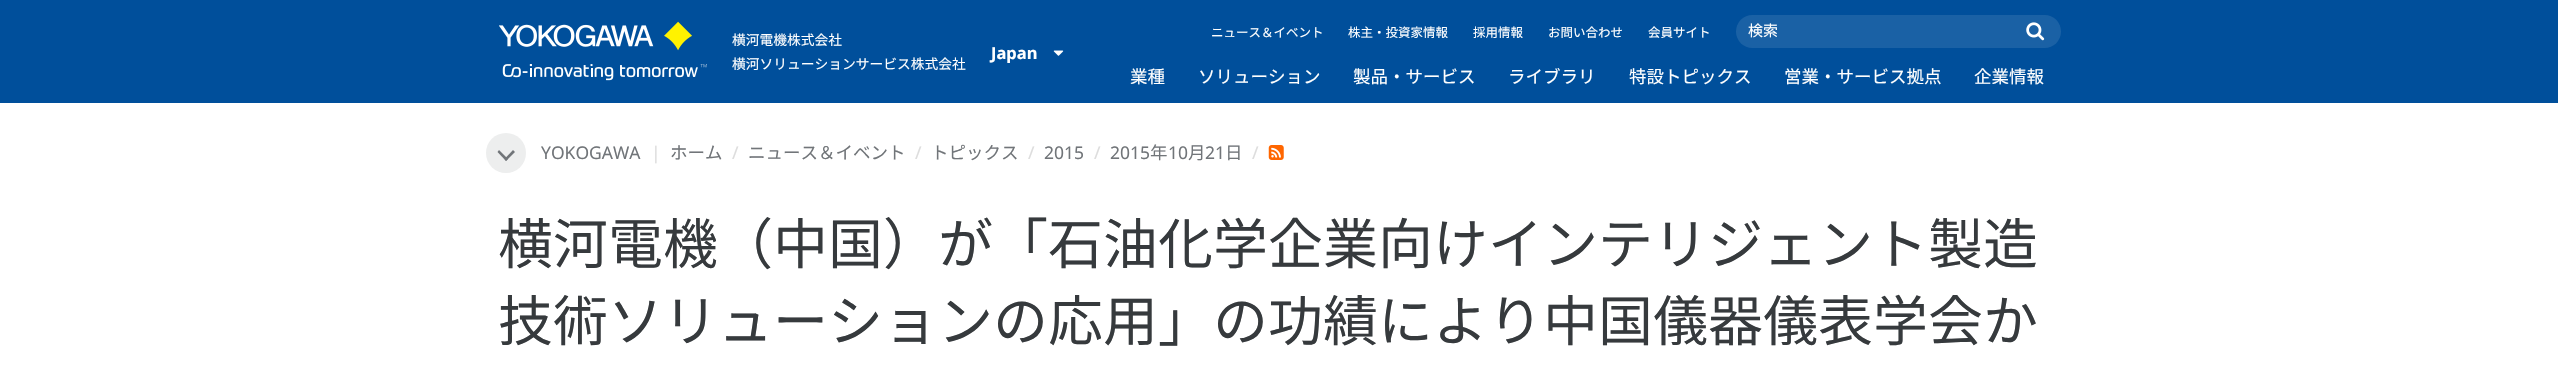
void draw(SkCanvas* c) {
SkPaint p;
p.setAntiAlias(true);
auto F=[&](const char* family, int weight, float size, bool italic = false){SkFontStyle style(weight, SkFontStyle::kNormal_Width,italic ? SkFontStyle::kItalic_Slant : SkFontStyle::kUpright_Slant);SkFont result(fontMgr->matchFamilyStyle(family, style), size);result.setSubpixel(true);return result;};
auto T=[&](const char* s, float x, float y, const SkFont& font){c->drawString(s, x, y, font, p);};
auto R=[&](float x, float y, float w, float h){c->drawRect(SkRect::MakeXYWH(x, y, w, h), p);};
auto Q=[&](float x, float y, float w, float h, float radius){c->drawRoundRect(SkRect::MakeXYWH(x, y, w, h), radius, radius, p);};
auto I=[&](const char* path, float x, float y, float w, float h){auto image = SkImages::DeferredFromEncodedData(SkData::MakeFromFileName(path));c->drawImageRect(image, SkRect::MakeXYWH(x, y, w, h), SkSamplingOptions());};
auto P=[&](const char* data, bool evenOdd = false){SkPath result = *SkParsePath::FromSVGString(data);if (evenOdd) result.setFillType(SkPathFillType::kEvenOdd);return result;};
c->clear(0xffffffff);
p.setColor(0xff004f9b);
R(0,0,2558,103);
I("1.png",499,21,208,60);
auto f1 = F("Noto Sans JP",400,13.75);
p.setColor(0xffffffff);
T("横河電機株式会社",732,45,f1);
T("横河ソリューションサービス株式会社",732,69,f1);
auto f2 = F("Noto Sans",700,16.5);
T("Japan",991,59,f2);
I("2.png",1053,50,11,6);
auto f3 = F("Noto Sans JP",400,12.5);
T("ニュース＆イベント",1211,37,f3);
T("株主・投資家情報",1348,37,f3);
T("採用情報",1473,37,f3);
T("お問い合わせ",1548,37,f3);
T("会員サイト",1648,37,f3);
p.setColor(0xff1a61a5);
Q(1736,15,325,33,16.5);
auto f4 = F("Noto Sans JP",400,15);
p.setColor(0xffffffff);
T("検索",1748,36,f4);
I("3.png",2026,22,19,19);
auto f5 = F("Noto Sans JP",400,17.5);
T("業種",1130,83,f5);
T("ソリューション",1198,83,f5);
T("製品・サービス",1353,83,f5);
T("ライブラリ",1508,83,f5);
T("特設トピックス",1629,83,f5);
T("営業・サービス拠点",1784,83,f5);
T("企業情報",1974,83,f5);
p.setColor(0xffedeeee);
c->drawCircle(506,153,20,p);
p.setColor(0xff717579);
c->drawPath(P("M504.5 159l8.5-9l2 2l-9 9z"),p);
c->drawPath(P("M506 161l-8.5-9l1.5-2l9 9z"),p);
auto f6 = F("Noto Sans",400,17.5);
T("YOKOGAWA",541,159,f6);
p.setColor(0xffdddddd);
T("|",651,159,f6);
p.setColor(0xff717579);
T("ホーム",670,159,f5);
p.setColor(0xffdddddd);
T("/",732,159,f6);
p.setColor(0xff717579);
T("ニュース＆イベント",748,159,f5);
p.setColor(0xffdddddd);
T("/",915,159,f6);
p.setColor(0xff717579);
T("トピックス",931,159,f5);
p.setColor(0xffdddddd);
T("/",1028,159,f6);
p.setColor(0xff717579);
T("2015",1044,159,f6);
p.setColor(0xffdddddd);
T("/",1094,159,f6);
p.setColor(0xff717579);
T("2015",1110,159,f6);
T("年",1150,159,f5);
T("10",1168,159,f6);
T("月",1188,159,f5);
T("21",1205,159,f6);
T("日",1225,159,f5);
p.setColor(0xffdddddd);
T("/",1252,159,f6);
I("4.png",1268,145,16,15);
auto f7 = F("Noto Sans JP",400,55);
p.setColor(0xff363a3d);
T("横河電機（中国）が「石油化学企業向けインテリジェント製造",498,264,f7);
T("技術ソリューションの応用」の功績により中国儀器儀表学会か",498,341,f7);
}
